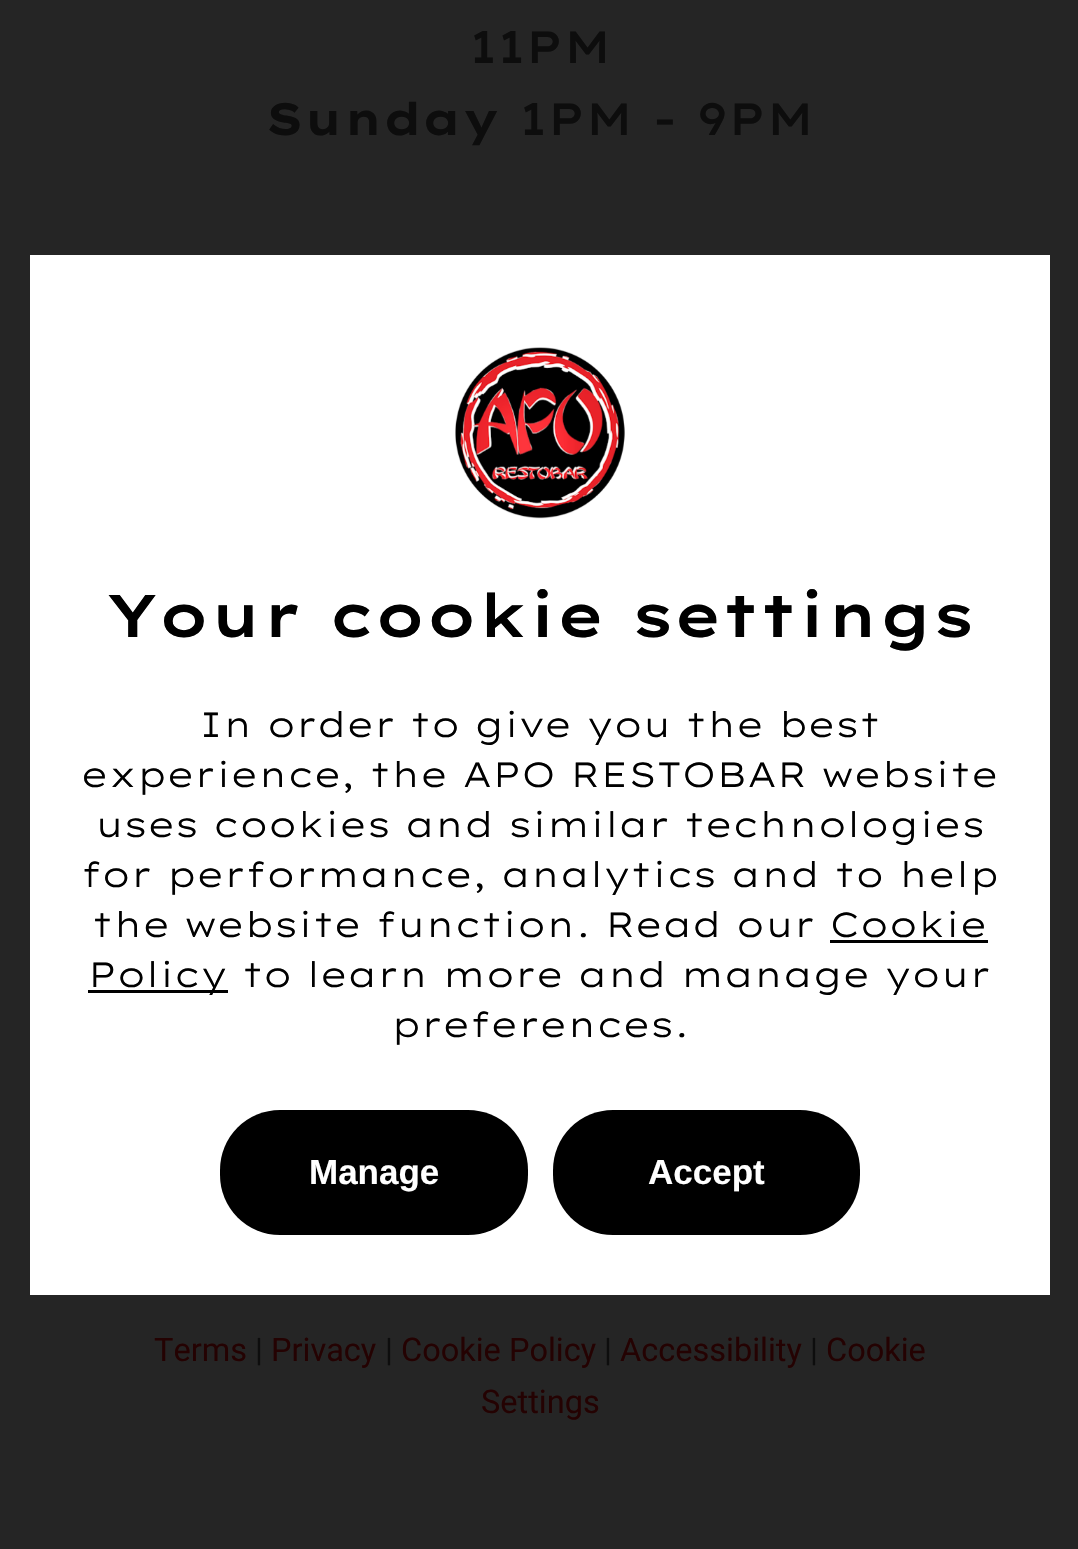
void draw(SkCanvas* c) {
SkPaint p;
p.setAntiAlias(true);
auto F=[&](const char* family, int weight, float size, bool italic = false){SkFontStyle style(weight, SkFontStyle::kNormal_Width,italic ? SkFontStyle::kItalic_Slant : SkFontStyle::kUpright_Slant);SkFont result(fontMgr->matchFamilyStyle(family, style), size);result.setSubpixel(true);return result;};
auto T=[&](const char* s, float x, float y, const SkFont& font){c->drawString(s, x, y, font, p);};
auto R=[&](float x, float y, float w, float h){c->drawRect(SkRect::MakeXYWH(x, y, w, h), p);};
auto Q=[&](float x, float y, float w, float h, float radius){c->drawRoundRect(SkRect::MakeXYWH(x, y, w, h), radius, radius, p);};
auto I=[&](const char* path, float x, float y, float w, float h){auto image = SkImages::DeferredFromEncodedData(SkData::MakeFromFileName(path));c->drawImageRect(image, SkRect::MakeXYWH(x, y, w, h), SkSamplingOptions());};
c->clear(0xff252525);
auto f1 = F("Lexend Mega",500,45);
p.setColor(0xff0d0d0d);
T("11PM",469,63,f1);
auto f2 = F("Lexend Mega",700,45);
T("Sunday",266,135,f2);
T("1PM - 9PM",519,135,f1);
auto f3 = F("Roboto",400,32.5);
p.setColor(0xff240202);
T("Terms",154,1361,f3);
p.setColor(0xff0d0d0d);
T("|",255,1361,f3);
p.setColor(0xff240202);
T("Privacy",271,1361,f3);
p.setColor(0xff0d0d0d);
T("|",385,1361,f3);
p.setColor(0xff240202);
T("Cookie Policy",401,1361,f3);
p.setColor(0xff0d0d0d);
T("|",604,1361,f3);
p.setColor(0xff240202);
T("Accessibility",620,1361,f3);
p.setColor(0xff0d0d0d);
T("|",810,1361,f3);
p.setColor(0xff240202);
T("Cookie",826,1361,f3);
T("Settings",481,1413,f3);
p.setColor(0xffffffff);
R(30,255,1020,1040);
I("1.png",455,347,170,172);
auto f4 = F("Lexend Mega",600,60);
p.setColor(0xff000000);
T("Your cookie settings",106,637,f4);
auto f5 = F("Lexend Mega",300,35);
T("In order to give you the best",199,737,f5);
T("experience, the APO RESTOBAR website",81,787,f5);
T("uses cookies and similar technologies",95,837,f5);
T("for performance, analytics and to help",81,887,f5);
T("the website function. Read our Cookie",92,937,f5);
R(88,990,140,3);
T("Policy to learn more and manage your",88,987,f5);
R(830,940,158,3);
T("preferences.",391,1037,f5);
Q(220,1110,308,125,60);
auto f6 = F("Liberation Sans",700,35);
p.setColor(0xffffffff);
T("Manage",309,1184,f6);
p.setColor(0xff000000);
Q(553,1110,307,125,60);
p.setColor(0xffffffff);
T("Accept",648,1184,f6);
}
